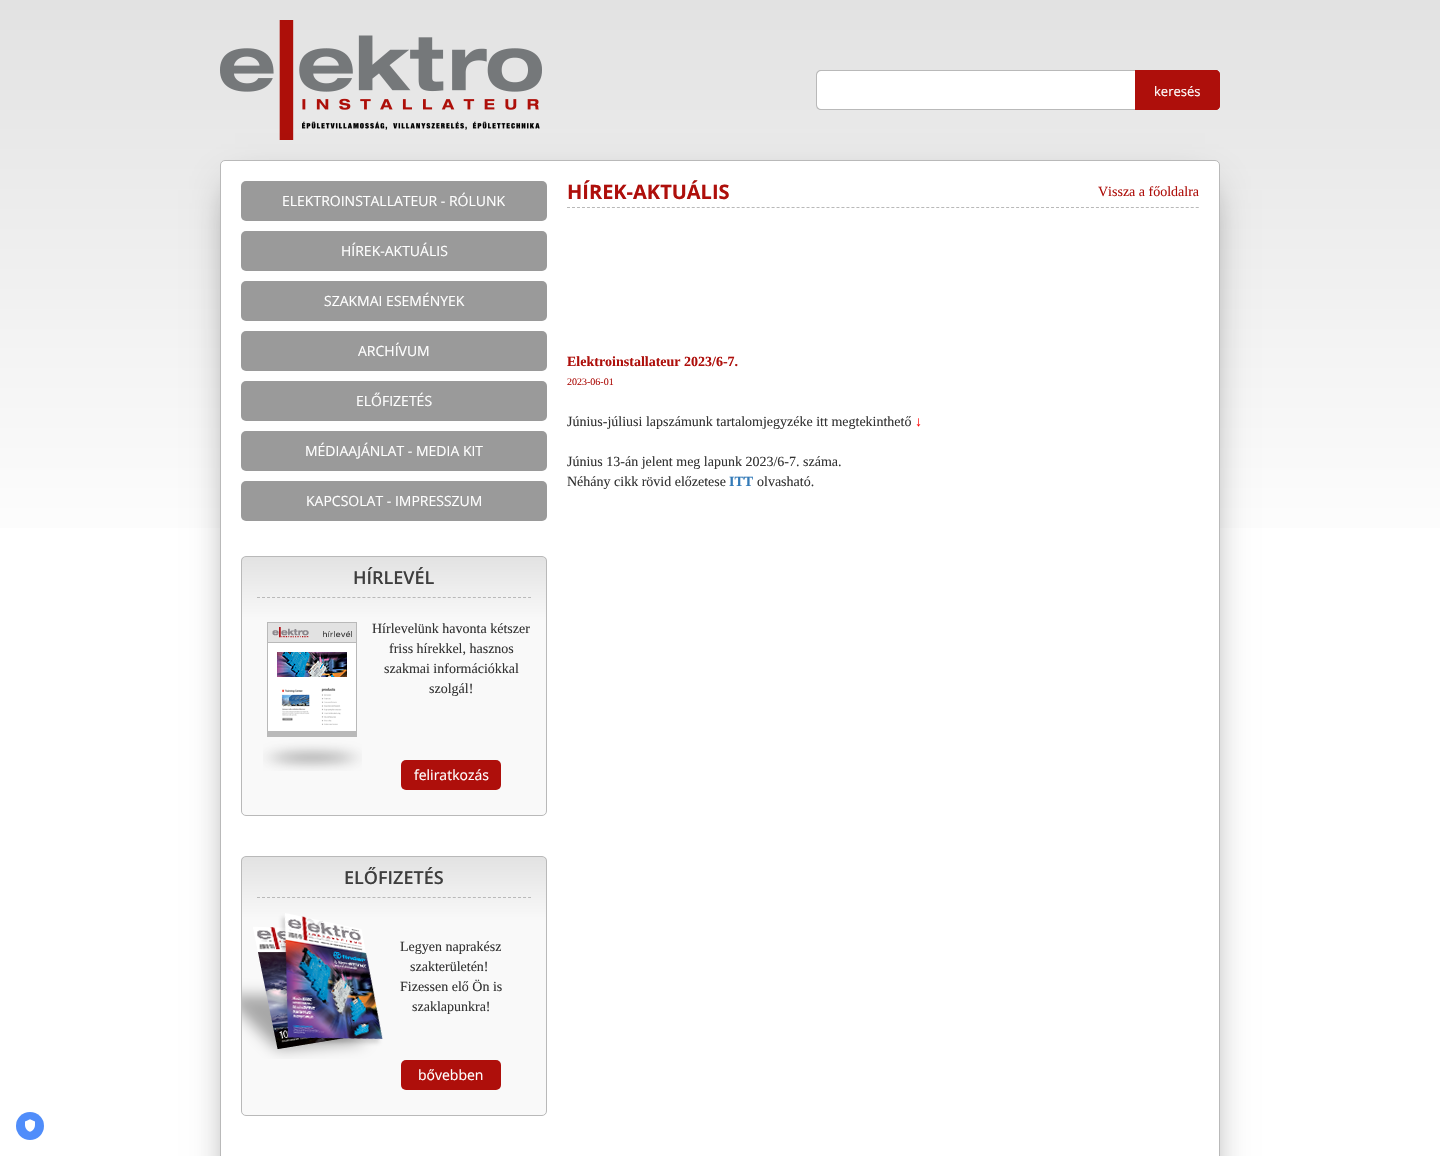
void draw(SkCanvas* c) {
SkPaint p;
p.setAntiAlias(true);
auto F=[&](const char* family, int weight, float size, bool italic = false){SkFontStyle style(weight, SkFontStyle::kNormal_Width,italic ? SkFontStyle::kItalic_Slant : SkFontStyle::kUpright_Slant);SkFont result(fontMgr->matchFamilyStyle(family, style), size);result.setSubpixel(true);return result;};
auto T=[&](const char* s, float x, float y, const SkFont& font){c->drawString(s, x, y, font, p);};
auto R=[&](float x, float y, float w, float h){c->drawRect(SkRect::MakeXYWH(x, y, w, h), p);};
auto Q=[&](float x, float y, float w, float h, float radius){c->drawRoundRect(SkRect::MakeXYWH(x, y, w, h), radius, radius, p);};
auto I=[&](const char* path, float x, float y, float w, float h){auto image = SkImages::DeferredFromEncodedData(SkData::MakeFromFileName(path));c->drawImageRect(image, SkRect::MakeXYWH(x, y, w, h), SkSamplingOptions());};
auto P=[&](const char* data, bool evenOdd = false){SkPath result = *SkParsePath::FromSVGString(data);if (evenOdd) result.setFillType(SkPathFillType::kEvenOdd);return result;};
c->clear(0xffffffff);
{
const SkColor colors[] = {0xffe2e2e2,0xffffffff,0xffffffff,0xffe2e2e2};
const float stops[] = {0,.25,.75,1};
const SkPoint ends[] = {{720,0}, {720,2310}};
p.setShader(SkGradientShader::MakeLinear(ends, colors, stops, 4, SkTileMode::kClamp));
p.setAlpha(255);
}
R(0,0,1440,528);
I("1.png",220,20,322,120);
p.setShader(nullptr);
p.setColor(0xffffffff);
c->drawPath(P("M821 70h315v40h-315c-3 0-5-2-5-5v-30c0-3 2-5 5-5z"),p);
p.setColor(0xffb9b9b9);
c->drawPath(P("M821 70h315v40h-315c-3 0-5-2-5-5v-30c0-3 2-5 5-5zm0 1h315v38h-315c-2 0-4-2-4-4v-30c0-2 2-4 4-4z",true),p);
p.setColor(0xffae0f0b);
c->drawPath(P("M1135 70h80c3 0 5 2 5 5v30c0 3-2 5-5 5h-80z"),p);
c->drawPath(P("M1135 70h80c3 0 5 2 5 5v30c0 3-2 5-5 5h-80zm0 1h80c2 0 4 2 4 4v30c0 2-2 4-4 4h-80z",true),p);
auto f1 = F("Open Sans",400,13);
p.setColor(0xffffffff);
T("keresés",1154,96,f1);
p.setColor(0x8c000000);
p.setMaskFilter(SkMaskFilter::MakeBlur(kNormal_SkBlurStyle, 19));
c->drawRect(SkRect::MakeXYWH(235,190,970,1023),p);
p.setMaskFilter(nullptr);
p.setColor(0xffffffff);
c->drawRoundRect(SkRect::MakeXYWH(220.5,160.5,999,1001),4.5,4.5,p);
p.setStroke(true);
p.setStrokeWidth(1);
p.setColor(0xffb9b9b9);
c->drawRoundRect(SkRect::MakeXYWH(220.5,160.5,999,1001),4.5,4.5,p);
p.setStroke(false);
p.setColor(0xff9a9a9a);
Q(241,181,306,40,5);
auto f2 = F("Open Sans",400,14);
p.setColor(0xffffffff);
T("ELEKTROINSTALLATEUR - RÓLUNK",282,206,f2);
p.setColor(0xff9a9a9a);
Q(241,231,306,40,5);
p.setColor(0xffffffff);
T("HÍREK-AKTUÁLIS",341,256,f2);
p.setColor(0xff9a9a9a);
Q(241,281,306,40,5);
p.setColor(0xffffffff);
T("SZAKMAI ESEMÉNYEK",324,306,f2);
p.setColor(0xff9a9a9a);
Q(241,331,306,40,5);
p.setColor(0xffffffff);
T("ARCHÍVUM",358,356,f2);
p.setColor(0xff9a9a9a);
Q(241,381,306,40,5);
p.setColor(0xffffffff);
T("ELŐFIZETÉS",356,406,f2);
p.setColor(0xff9a9a9a);
Q(241,431,306,40,5);
p.setColor(0xffffffff);
T("MÉDIAAJÁNLAT - MEDIA KIT",305,456,f2);
p.setColor(0xff9a9a9a);
Q(241,481,306,40,5);
p.setColor(0xffffffff);
T("KAPCSOLAT - IMPRESSZUM",306,506,f2);
c->save();
c->clipPath(P("M246 556h296c3 0 5 2 5 5v250c0 3-2 5-5 5h-296c-3 0-5-2-5-5v-250c0-3 2-5 5-5z"),true);
{
const SkColor colors[] = {0xffe2e2e2,0xfff9f9f9,0xfff9f9f9};
const float stops[] = {0,.25,1};
const SkPoint ends[] = {{394,557}, {394,815}};
p.setShader(SkGradientShader::MakeLinear(ends, colors, stops, 3, SkTileMode::kClamp));
p.setAlpha(255);
}
R(241,557,306,258);
c->restore();
p.setStroke(true);
p.setShader(nullptr);
p.setColor(0xffb9b9b9);
c->drawRoundRect(SkRect::MakeXYWH(241.5,556.5,305,259),4.5,4.5,p);
p.setPathEffect(SkDashPathEffect::Make({{3,2.02f}}, 0));
c->drawPath(P("M257 597.5h274"),p);
p.setPathEffect(nullptr);
auto f3 = F("Open Sans",600,18);
p.setStroke(false);
p.setColor(0xff3e3e3e);
T("HÍRLEVÉL",353,584,f3);
I("2.png",263,622,99,149);
auto f4 = F("Liberation Serif",400,14);
p.setColor(0xff333333);
T("Hírlevelünk havonta kétszer",372,633,f4);
T("friss hírekkel, hasznos",389,653,f4);
T("szakmai információkkal",384,673,f4);
T("szolgál!",429,693,f4);
p.setColor(0xffae0f0b);
Q(401,760,100,30,5);
p.setColor(0xffffffff);
T("feliratkozás",414,780,f2);
c->save();
c->clipPath(P("M246 856h296c3 0 5 2 5 5v250c0 3-2 5-5 5h-296c-3 0-5-2-5-5v-250c0-3 2-5 5-5z"),true);
{
const SkColor colors[] = {0xffe2e2e2,0xfff9f9f9,0xfff9f9f9};
const float stops[] = {0,.25,1};
const SkPoint ends[] = {{394,857}, {394,1115}};
p.setShader(SkGradientShader::MakeLinear(ends, colors, stops, 3, SkTileMode::kClamp));
p.setAlpha(255);
}
R(241,857,306,258);
c->restore();
p.setStroke(true);
p.setShader(nullptr);
p.setColor(0xffb9b9b9);
c->drawRoundRect(SkRect::MakeXYWH(241.5,856.5,305,259),4.5,4.5,p);
p.setPathEffect(SkDashPathEffect::Make({{3,2.02f}}, 0));
c->drawPath(P("M257 897.5h274"),p);
p.setPathEffect(nullptr);
p.setStroke(false);
p.setColor(0xff3e3e3e);
T("ELŐFIZETÉS",344,884,f3);
I("3.png",242,913,141,146);
p.setColor(0xff333333);
T("Legyen naprakész",400,951,f4);
T("szakterületén!",410,971,f4);
T("Fizessen elő Ön is",400,991,f4);
T("szaklapunkra!",412,1011,f4);
p.setColor(0xffae0f0b);
Q(401,1060,100,30,5);
p.setColor(0xffffffff);
T("bővebben",418,1080,f2);
p.setStroke(true);
p.setColor(0xffb9b9b9);
p.setPathEffect(SkDashPathEffect::Make({{3,1.99f}}, 0));
c->drawPath(P("M567 207.5h632"),p);
p.setPathEffect(nullptr);
auto f5 = F("Open Sans",700,20);
p.setStroke(false);
p.setColor(0xffae0f0b);
T("HÍREK-AKTUÁLIS",567,199,f5);
auto f6 = F("Liberation Serif",700,14);
T("Elektroinstallateur 2023/6-7.",567,366,f6);
auto f7 = F("Liberation Serif",400,10);
T("2023-06-01",567,385,f7);
p.setColor(0xff333333);
T("Június-júliusi lapszámunk tartalomjegyzéke itt megtekinthető",567,426,f4);
p.setColor(0xffff0000);
T("↓",915,426,f6);
p.setColor(0xff333333);
T("Június 13-án jelent meg lapunk 2023/6-7. száma.",567,466,f4);
T("Néhány cikk rövid előzetese",567,486,f4);
p.setColor(0xff337ab7);
T("ITT",729,486,f6);
p.setColor(0xff333333);
T("olvasható.",757,486,f4);
p.setColor(0xffae0f0b);
T("Vissza a főoldalra",1098,196,f4);
p.setColor(0xff508dfa);
c->drawCircle(30,1126,14,p);
I("4.png",25,1119,10,13);
}
